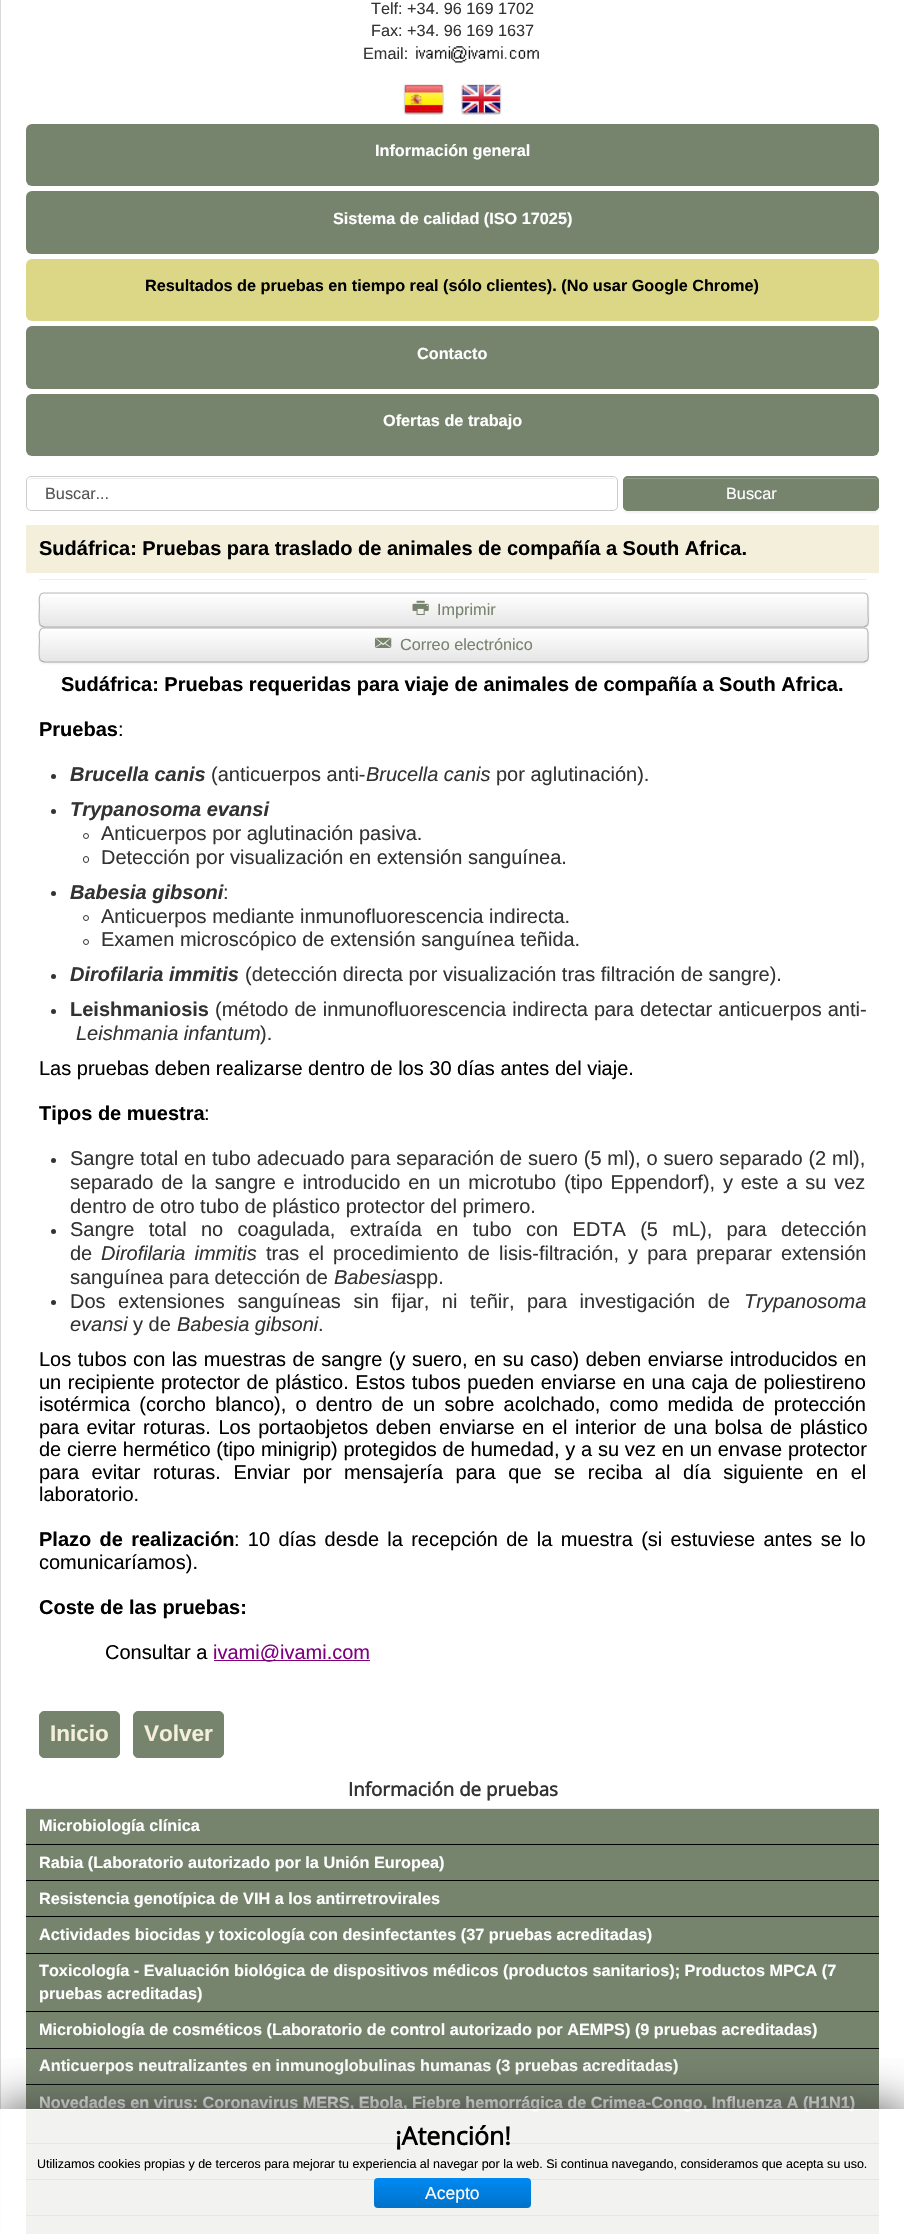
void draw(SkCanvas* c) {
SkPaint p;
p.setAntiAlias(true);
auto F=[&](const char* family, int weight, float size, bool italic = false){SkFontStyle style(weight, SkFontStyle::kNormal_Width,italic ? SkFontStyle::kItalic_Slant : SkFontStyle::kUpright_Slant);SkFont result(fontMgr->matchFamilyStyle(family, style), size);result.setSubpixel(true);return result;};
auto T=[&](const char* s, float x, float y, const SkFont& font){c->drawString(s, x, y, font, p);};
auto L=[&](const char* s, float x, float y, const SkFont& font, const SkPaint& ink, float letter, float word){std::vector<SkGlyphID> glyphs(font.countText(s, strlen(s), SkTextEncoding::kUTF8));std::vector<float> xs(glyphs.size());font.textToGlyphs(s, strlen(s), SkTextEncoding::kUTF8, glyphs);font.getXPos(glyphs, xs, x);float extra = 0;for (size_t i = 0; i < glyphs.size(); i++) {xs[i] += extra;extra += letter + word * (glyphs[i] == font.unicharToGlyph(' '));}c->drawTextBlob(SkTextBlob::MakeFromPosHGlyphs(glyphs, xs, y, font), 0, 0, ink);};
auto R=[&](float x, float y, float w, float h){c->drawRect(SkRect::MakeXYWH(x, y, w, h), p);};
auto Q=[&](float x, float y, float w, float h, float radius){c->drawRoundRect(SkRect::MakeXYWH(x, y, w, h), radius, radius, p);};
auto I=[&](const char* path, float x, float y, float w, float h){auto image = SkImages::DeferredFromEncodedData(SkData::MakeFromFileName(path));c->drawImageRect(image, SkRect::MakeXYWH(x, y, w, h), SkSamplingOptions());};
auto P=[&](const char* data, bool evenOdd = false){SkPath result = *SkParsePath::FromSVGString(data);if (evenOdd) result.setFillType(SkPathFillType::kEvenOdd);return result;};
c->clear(0xffffffff);
p.setStroke(true);
p.setStrokeWidth(1);
p.setColor(0xffd9d9d9);
c->drawRect(SkRect::MakeXYWH(.5,-.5,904,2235),p);
auto f1 = F("Liberation Sans",400,16.25);
p.setStroke(false);
p.setColor(0xff333333);
T("Telf: +34. 96 169 1702",371,14,f1);
T("Fax: +34. 96 169 1637",371,36,f1);
T("Email:",363,59,f1);
I("1.png",416,46,123,17);
I("2.png",403,84,41,31);
I("3.png",461,84,41,31);
p.setColor(0xff76836d);
Q(26,124,853,62,6);
auto f2 = F("Liberation Sans",700,16.25);
p.setColor(0xffffffff);
T("Información general",375,156,f2);
p.setColor(0xff76836d);
Q(26,191,853,63,6);
p.setColor(0xffffffff);
T("Sistema de calidad (ISO 17025)",333,224,f2);
p.setColor(0xffdbd786);
Q(26,259,853,62,6);
p.setColor(0xff000000);
T("Resultados de pruebas en tiempo real (sólo clientes). (No usar Google Chrome)",145,291,f2);
p.setColor(0xff76836d);
Q(26,326,853,63,6);
p.setColor(0xffffffff);
T("Contacto",417,359,f2);
p.setColor(0xff76836d);
Q(26,394,853,62,6);
p.setColor(0xffffffff);
T("Ofertas de trabajo",383,426,f2);
p.setColor(0xffececec);
c->drawPath(P("M31 479h581c2 0 3 0 4 1c-1-1-2-2-4-2h-580c-1 0-3 1-3 2z"),p);
p.setStroke(true);
p.setColor(0xffcccccc);
c->drawRoundRect(SkRect::MakeXYWH(26.5,476.5,591,34),4.5,4.5,p);
p.setStroke(false);
p.setColor(0xff555555);
T("Buscar...",45,499,f1);
p.setColor(0x0d000000);
p.setMaskFilter(SkMaskFilter::MakeBlur(kNormal_SkBlurStyle, 1));
c->drawRoundRect(SkRect::MakeXYWH(623,478,256,35),5,5,p);
p.setMaskFilter(nullptr);
p.setColor(0xff76836d);
Q(623,476,256,35,5);
p.setColor(0xff919c8a);
c->drawPath(P("M628 479h246c2 0 4 1 4 3c0-2-2-4-4-4h-246c-2 0-3 1-4 2c1-1 2-1 4-1z"),p);
p.setStroke(true);
p.setColor(0xff76836d);
c->drawRoundRect(SkRect::MakeXYWH(623.5,476.5,255,34),4.5,4.5,p);
p.setStroke(false);
p.setColor(0xffffffff);
T("Buscar",726,499,f1);
p.setColor(0xffeeeeee);
R(39,579,827,1);
p.setColor(0xfff3efda);
R(26,525,853,48);
auto f3 = F("Liberation Sans",700,20);
p.setColor(0xff000000);
T("Sudáfrica: Pruebas para traslado de animales de compañía a South Africa.",39,555,f3);
p.setColor(0x0d000000);
p.setMaskFilter(SkMaskFilter::MakeBlur(kNormal_SkBlurStyle, 1));
c->drawRoundRect(SkRect::MakeXYWH(39,594,830,35),5,5,p);
p.setMaskFilter(nullptr);
p.setColor(0xfff5f5f5);
Q(39,593,830,35,5);
c->save();
c->clipPath(P("M44 593h820c3 0 5 2 5 5v25c0 3-2 5-5 5h-820c-3 0-5-2-5-5v-25c0-3 2-5 5-5z"),true);
{
const SkColor colors[] = {0xffffffff,0xffe6e6e6};
const float stops[] = {0,1};
const SkPoint ends[] = {{454,594}, {454,626}};
p.setShader(SkGradientShader::MakeLinear(ends, colors, stops, 2, SkTileMode::kClamp));
p.setAlpha(255);
}
R(39,594,830,32);
c->restore();
p.setStroke(true);
p.setStrokeWidth(1.2);
p.setShader(nullptr);
p.setColor(0xffa2a2a2);
c->drawPath(P("M867 625.5l-3 1.5h-820l-3.5-1.5"),p);
p.setColor(0xffbbbbbb);
c->drawPath(P("M40.5 625.5c-2.5-2.5-1-16-1-19.5c0-3.5-2-13 4.5-13h820c4.5 0 4 5.5 4 8.5v12.5c0 3.5 1.5 9-1 11.5"),p);
I("4.png",412,600,17,15);
p.setStroke(false);
p.setColor(0xff76836d);
T("Imprimir",437,615,f1);
p.setColor(0x0d000000);
p.setMaskFilter(SkMaskFilter::MakeBlur(kNormal_SkBlurStyle, 1));
c->drawRoundRect(SkRect::MakeXYWH(39,629,830,35),5,5,p);
p.setMaskFilter(nullptr);
p.setColor(0xfff5f5f5);
Q(39,628,830,35,5);
c->save();
c->clipPath(P("M44 628h820c3 0 5 2 5 5v25c0 3-2 5-5 5h-820c-3 0-5-2-5-5v-25c0-3 2-5 5-5z"),true);
{
const SkColor colors[] = {0xffffffff,0xffe6e6e6};
const float stops[] = {0,1};
const SkPoint ends[] = {{454,629}, {454,661}};
p.setShader(SkGradientShader::MakeLinear(ends, colors, stops, 2, SkTileMode::kClamp));
p.setAlpha(255);
}
R(39,629,830,32);
c->restore();
p.setStroke(true);
p.setShader(nullptr);
p.setColor(0xffa2a2a2);
c->drawPath(P("M867 660.5l-3 1.5h-820l-3.5-1.5"),p);
p.setColor(0xffbbbbbb);
c->drawPath(P("M40.5 660.5c-2.5-2.5-1-16-1-19.5c0-3.5-2-13 4.5-13h820c4.5 0 4 5.5 4 8.5v12.5c0 3.5 1.5 9-1 11.5"),p);
I("5.png",375,637,17,11);
p.setStroke(false);
p.setColor(0xff76836d);
T("Correo electrónico",400,650,f1);
p.setColor(0xff000000);
T("Sudáfrica: Pruebas requeridas para viaje de animales de compañía a South Africa.",61,691,f3);
T("Pruebas",39,736,f3);
auto f4 = F("Liberation Sans",400,20);
T(":",118,736,f4);
p.setColor(0xff333333);
c->drawCircle(53.5,776.5,2.5,p);
auto f5 = F("Liberation Sans",700,20,true);
T("Brucella canis",70,781,f5);
T("(anticuerpos anti-",211,781,f4);
auto f6 = F("Liberation Sans",400,20,true);
T("Brucella canis",366,781,f6);
T("por aglutinación).",496,781,f4);
c->drawCircle(53.5,811.5,2.5,p);
T("Trypanosoma evansi",70,816,f5);
p.setStroke(true);
p.setStrokeWidth(1);
c->drawCircle(86,836,2.5,p);
p.setStroke(false);
T("Anticuerpos por aglutinación pasiva.",101,840,f4);
p.setStroke(true);
c->drawRoundRect(SkRect::MakeXYWH(83.5,856.5,5,6),2.5,2.5,p);
p.setStroke(false);
T("Detección por visualización en extensión sanguínea.",101,864,f4);
c->drawCircle(53.5,893.5,2.5,p);
T("Babesia gibsoni",70,899,f5);
T(":",223,899,f4);
p.setStroke(true);
c->drawCircle(86,918,2.5,p);
p.setStroke(false);
T("Anticuerpos mediante inmunofluorescencia indirecta.",101,923,f4);
p.setStroke(true);
c->drawCircle(86,942,2.5,p);
p.setStroke(false);
T("Examen microscópico de extensión sanguínea teñida.",101,946,f4);
c->drawCircle(53.5,976.5,2.5,p);
T("Dirofilaria immitis",70,981,f5);
T("(detección directa por visualización tras filtración de sangre).",245,981,f4);
c->drawCircle(53.5,1011.5,2.5,p);
T("Leishmaniosis",70,1016,f3);
L("(método de inmunofluorescencia indirecta para detectar anticuerpos anti-",215,1016,f4,p,0,.5);
T("Leishmania infantum",76,1040,f6);
T(").",260,1040,f4);
p.setColor(0xff000000);
T("Las pruebas deben realizarse dentro de los 30 días antes del viaje.",39,1075,f4);
T("Tipos de muestra",39,1120,f3);
T(":",204,1120,f4);
p.setColor(0xff333333);
c->drawCircle(53.5,1160.5,2.5,p);
L("Sangre total en tubo adecuado para separación de suero (5 ml), o suero separado (2 ml),",70,1165,f4,p,0,.25);
L("separado de la sangre e introducido en un microtubo (tipo Eppendorf), y este a su vez",70,1189,f4,p,0,2.25);
T("dentro de otro tubo de plástico protector del primero.",70,1213,f4);
c->drawCircle(53.5,1231.5,2.5,p);
L("Sangre total no coagulada, extraída en tubo con EDTA (5 mL), para detección",70,1236,f4,p,0,8.75);
T("de",70,1260,f4);
L("Dirofilaria immitis",101,1260,f6,p,0,3.5);
L("tras el procedimiento de lisis-filtración, y para preparar extensión",266,1260,f4,p,0,3.5);
T("sanguínea para detección de",70,1284,f4);
T("Babesia",334,1284,f6);
T("spp.",406,1284,f4);
c->drawCircle(53.5,1302.5,2.5,p);
L("Dos extensiones sanguíneas sin fijar, ni teñir, para investigación de",70,1308,f4,p,0,7);
T("Trypanosoma",744,1308,f6);
T("evansi",70,1331,f6);
T("y de",133,1331,f4);
T("Babesia gibsoni",177,1331,f6);
T(".",318,1331,f4);
p.setColor(0xff000000);
L("Los tubos con las muestras de sangre (y suero, en su caso) deben enviarse introducidos en",39,1366,f4,p,0,.9);
L("un recipiente protector de plástico. Estos tubos pueden enviarse en una caja de poliestireno",39,1389,f4,p,0,1);
L("isotérmica (corcho blanco), o dentro de un sobre acolchado, como medida de protección",39,1411,f4,p,0,3.6);
L("para evitar roturas. Los portaobjetos deben enviarse en el interior de una bolsa de plástico",39,1434,f4,p,0,2);
L("de cierre hermético (tipo minigrip) protegidos de humedad, y a su vez en un envase protector",39,1456,f4,p,0,.2);
L("para evitar roturas. Enviar por mensajería para que se reciba al día siguiente en el",39,1479,f4,p,0,7);
T("laboratorio.",39,1501,f4);
L("Plazo de realización",39,1546,f3,p,0,2.75);
L(": 10 días desde la recepción de la muestra (si estuviese antes se lo",234,1546,f4,p,0,2.75);
T("comunicaríamos).",39,1569,f4);
T("Coste de las pruebas:",39,1614,f3);
T("Consultar a",105,1659,f4);
p.setColor(0xff800080);
R(214,1660,156,1);
T("ivami@ivami.com",213,1659,f4);
p.setColor(0xff76836d);
c->drawRoundRect(SkRect::MakeXYWH(39.5,1711.5,80,46),4.5,4.5,p);
p.setStroke(true);
c->drawRoundRect(SkRect::MakeXYWH(39.5,1711.5,80,46),4.5,4.5,p);
auto f7 = F("Liberation Sans",700,22.5);
p.setStroke(false);
p.setColor(0xfff3efda);
T("Inicio",50,1741,f7);
p.setColor(0xff76836d);
c->drawRoundRect(SkRect::MakeXYWH(133.5,1711.5,90,46),4.5,4.5,p);
p.setStroke(true);
c->drawRoundRect(SkRect::MakeXYWH(133.5,1711.5,90,46),4.5,4.5,p);
p.setStroke(false);
p.setColor(0xfff3efda);
T("Volver",144,1741,f7);
p.setColor(0xff76836d);
R(26,1809,853,425);
p.setColor(0xffeeeeee);
R(26,1808,853,1);
auto f8 = F("Open Sans",700,18.75);
p.setColor(0xff333333);
T("Información de pruebas",348,1796,f8);
p.setColor(0xff000000);
R(26,1844,853,1);
p.setColor(0xffffffff);
T("Microbiología clínica",39,1831,f2);
p.setColor(0xff000000);
R(26,1880,853,1);
p.setColor(0xffffffff);
T("Rabia (Laboratorio autorizado por la Unión Europea)",39,1868,f2);
p.setColor(0xff000000);
R(26,1916,853,1);
p.setColor(0xffffffff);
T("Resistencia genotípica de VIH a los antirretrovirales",39,1904,f2);
p.setColor(0xff000000);
R(26,1953,853,1);
p.setColor(0xffffffff);
T("Actividades biocidas y toxicología con desinfectantes (37 pruebas acreditadas)",39,1940,f2);
p.setColor(0xff000000);
R(26,2011,853,1);
p.setColor(0xffffffff);
T("Toxicología - Evaluación biológica de dispositivos médicos (productos sanitarios); Productos MPCA (7",39,1976,f2);
T("pruebas acreditadas)",39,1999,f2);
p.setColor(0xff000000);
R(26,2048,853,1);
p.setColor(0xffffffff);
T("Microbiología de cosméticos (Laboratorio de control autorizado por AEMPS) (9 pruebas acreditadas)",39,2035,f2);
p.setColor(0xff000000);
R(26,2084,853,1);
p.setColor(0xffffffff);
T("Anticuerpos neutralizantes en inmunoglobulinas humanas (3 pruebas acreditadas)",39,2071,f2);
p.setColor(0xff000000);
R(26,2143,853,1);
p.setColor(0xffffffff);
T("Novedades en virus: Coronavirus MERS, Ebola, Fiebre hemorrágica de Crimea-Congo, Influenza A (H1N1)",39,2108,f2);
p.setColor(0xff000000);
R(26,2179,853,1);
R(26,2215,853,1);
c->save();
c->clipRect(SkRect::MakeXYWH(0,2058,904,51));
p.setColor(0xff444444);
p.setMaskFilter(SkMaskFilter::MakeBlur(kNormal_SkBlurStyle, 25));
c->drawRect(SkRect::MakeXYWH(0,2109,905,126),p);
p.setMaskFilter(nullptr);
c->restore();
p.setColor(0xe6ffffff);
R(0,2110,879,124);
p.setColor(0xffffffff);
R(0,2109,879,1);
auto f9 = F("Open Sans",700,25);
p.setColor(0xff000000);
T("¡Atención!",395,2145,f9);
auto f10 = F("Liberation Sans",400,12.5);
T("Utilizamos cookies propias y de terceros para mejorar tu experiencia al navegar por la web. Si continua navegando, consideramos que acepta su uso.",37,2168,f10);
{
const SkColor colors[] = {0xff0089f2,0xff0072ca};
const float stops[] = {0,1};
const SkPoint ends[] = {{453,2178}, {453,2208}};
p.setShader(SkGradientShader::MakeLinear(ends, colors, stops, 2, SkTileMode::kClamp));
p.setAlpha(255);
}
Q(374,2178,157,30,4);
auto f11 = F("Liberation Sans",400,17.5);
p.setShader(nullptr);
p.setColor(0xffffffff);
T("Acepto",425,2199,f11);
}
